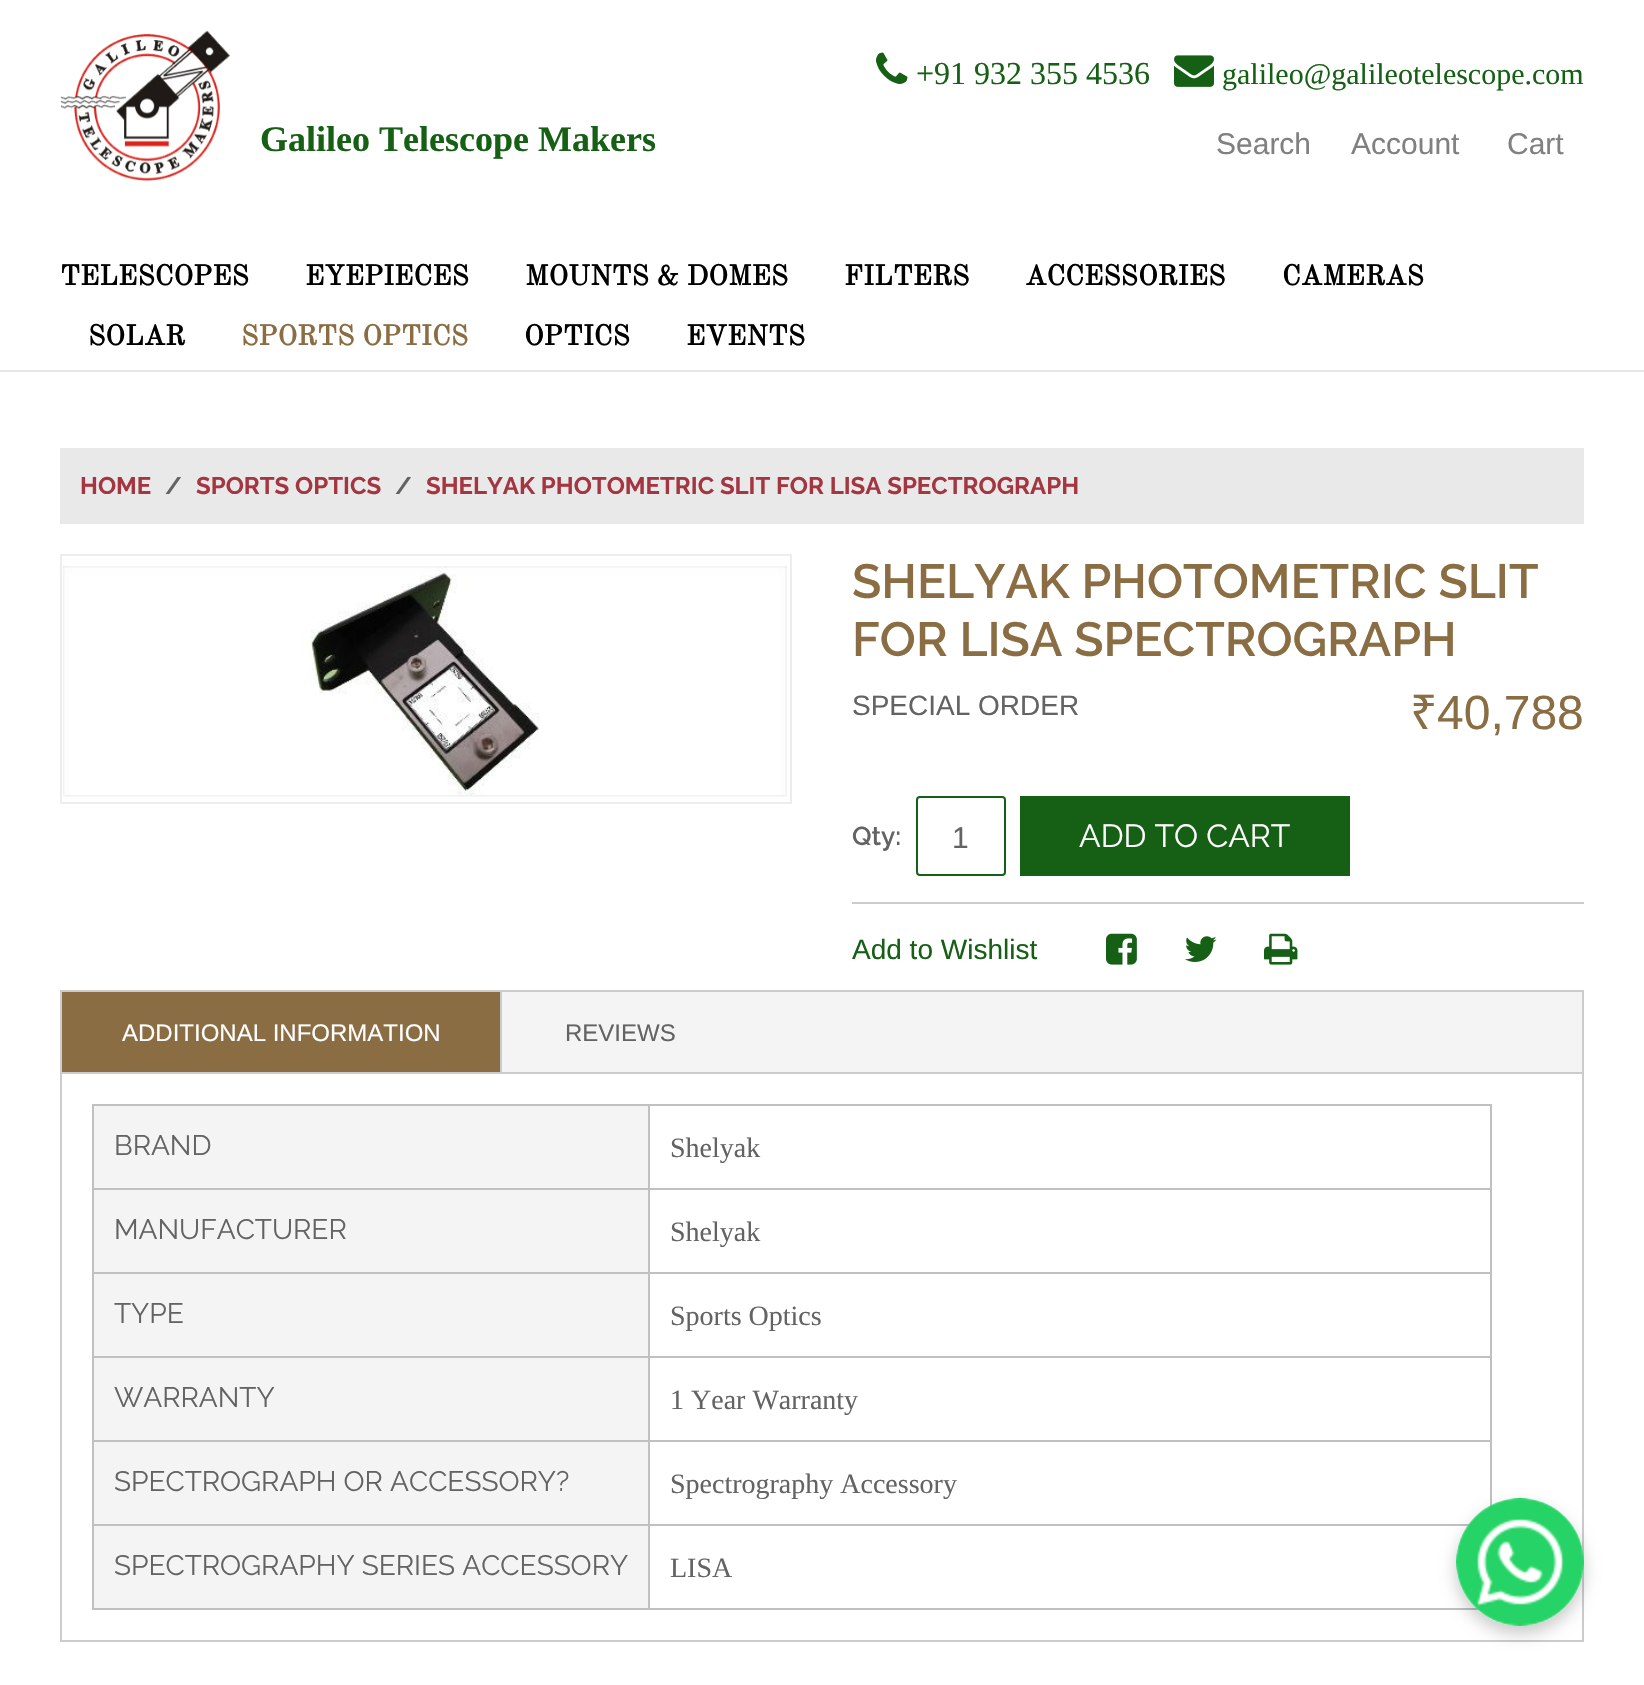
void draw(SkCanvas* c) {
SkPaint p;
p.setAntiAlias(true);
auto F=[&](const char* family, int weight, float size, bool italic = false){SkFontStyle style(weight, SkFontStyle::kNormal_Width,italic ? SkFontStyle::kItalic_Slant : SkFontStyle::kUpright_Slant);SkFont result(fontMgr->matchFamilyStyle(family, style), size);result.setSubpixel(true);return result;};
auto T=[&](const char* s, float x, float y, const SkFont& font){c->drawString(s, x, y, font, p);};
auto R=[&](float x, float y, float w, float h){c->drawRect(SkRect::MakeXYWH(x, y, w, h), p);};
auto I=[&](const char* path, float x, float y, float w, float h){auto image = SkImages::DeferredFromEncodedData(SkData::MakeFromFileName(path));c->drawImageRect(image, SkRect::MakeXYWH(x, y, w, h), SkSamplingOptions());};
auto P=[&](const char* data, bool evenOdd = false){SkPath result = *SkParsePath::FromSVGString(data);if (evenOdd) result.setFillType(SkPathFillType::kEvenOdd);return result;};
c->clear(0xffffffff);
p.setColor(0xffe6e6e6);
R(0,370,1644,2);
I("1.png",60,30,170,151);
auto f1 = F("Liberation Serif",700,36);
p.setColor(0xff166015);
T("Galileo Telescope Makers",260,151,f1);
I("2.png",876,52,32,32);
auto f2 = F("Liberation Serif",400,32);
T("+91 932 355 4536",916,84,f2);
I("3.png",1174,55,40,32);
auto f3 = F("Liberation Serif",400,30);
T("galileo@galileotelescope.com",1222,84,f3);
auto f4 = F("Liberation Sans",400,30);
p.setColor(0xff808080);
T("Search",1216,154,f4);
T("Account",1351,154,f4);
T("Cart",1507,154,f4);
auto f5 = F("Old Standard TT",700,28);
p.setColor(0xff000000);
T("TELESCOPES",60,285,f5);
T("EYEPIECES",305,285,f5);
T("MOUNTS & DOMES",525,285,f5);
T("FILTERS",844,285,f5);
T("ACCESSORIES",1025,285,f5);
T("CAMERAS",1282,285,f5);
T("SOLAR",88,345,f5);
p.setColor(0xff8a6d43);
T("SPORTS OPTICS",241,345,f5);
p.setColor(0xff000000);
T("OPTICS",524,345,f5);
T("EVENTS",686,345,f5);
p.setColor(0xffe9e9e9);
R(60,448,1524,76);
auto f6 = F("Raleway",700,24);
p.setColor(0xffa43641);
T("HOME",80,494,f6);
p.setColor(0xff636363);
T("/",165,494,f6);
p.setColor(0xffa43641);
T("SPORTS OPTICS",196,494,f6);
p.setColor(0xff636363);
T("/",395,494,f6);
p.setColor(0xffa43641);
T("SHELYAK PHOTOMETRIC SLIT FOR LISA SPECTROGRAPH",426,494,f6);
p.setStroke(true);
p.setStrokeWidth(2);
p.setColor(0xffededed);
c->drawRect(SkRect::MakeXYWH(61,555,730,248),p);
I("4.png",62,565,726,232);
auto f7 = F("Raleway",600,48);
p.setStroke(false);
p.setColor(0xff8a6d43);
T("SHELYAK PHOTOMETRIC SLIT",852,598,f7);
T("FOR LISA SPECTROGRAPH",852,656,f7);
auto f8 = F("Liberation Sans",400,28);
p.setColor(0xff636363);
T("SPECIAL ORDER",852,715,f8);
auto f9 = F("Noto Sans",400,48);
p.setColor(0xff8a6d43);
T("₹",1410,729,f9);
auto f10 = F("Liberation Sans",400,48);
T("40,788",1437,729,f10);
p.setColor(0xffcccccc);
R(852,902,732,2);
auto f11 = F("Raleway",600,26);
p.setColor(0xff636363);
T("Qty:",852,845,f11);
p.setStroke(true);
p.setColor(0xff166015);
c->drawRoundRect(SkRect::MakeXYWH(917,797,88,78),3,3,p);
p.setStroke(false);
p.setColor(0xff636363);
T("1",952,848,f4);
p.setColor(0xff166015);
R(1020,796,330,80);
auto f12 = F("Raleway",400,32);
p.setColor(0xffffffff);
T("ADD TO CART",1079,847,f12);
p.setColor(0xff166015);
T("Add to Wishlist",852,959,f8);
I("5.png",1106,933,31,32);
I("6.png",1185,936,32,26);
I("7.png",1264,933,34,32);
p.setColor(0xfff4f4f4);
R(502,992,1080,80);
p.setStroke(true);
p.setColor(0xffcccccc);
c->drawRect(SkRect::MakeXYWH(61,991,1522,82),p);
p.setStroke(false);
R(500,992,2,80);
p.setColor(0xff8a6d43);
R(62,992,438,80);
auto f13 = F("Liberation Sans",400,24);
p.setColor(0xffffffff);
T("ADDITIONAL INFORMATION",122,1041,f13);
p.setColor(0xff636363);
T("REVIEWS",565,1041,f13);
p.setColor(0xffcccccc);
R(1582,1074,2,568);
R(60,1640,1524,2);
R(60,1074,2,568);
p.setColor(0xffc0c0c0);
R(92,1104,1400,2);
R(1490,1104,2,405);
R(92,1608,1389,2);
R(92,1104,2,506);
p.setColor(0xfff4f4f4);
R(94,1106,554,82);
p.setColor(0xffc0c0c0);
R(648,1524,2,86);
R(648,1524,823,2);
R(648,1440,2,86);
R(648,1440,844,2);
R(648,1356,2,86);
R(648,1356,844,2);
R(648,1272,2,86);
R(648,1272,844,2);
R(648,1188,2,86);
R(648,1188,844,2);
R(648,1104,2,86);
R(92,1188,558,2);
auto f14 = F("Raleway",400,28);
p.setColor(0xff636363);
T("BRAND",114,1155,f14);
auto f15 = F("Liberation Serif",400,28);
T("Shelyak",670,1157,f15);
p.setColor(0xfff4f4f4);
R(94,1190,554,82);
p.setColor(0xffc0c0c0);
R(92,1272,558,2);
p.setColor(0xff636363);
T("MANUFACTURER",114,1239,f14);
T("Shelyak",670,1241,f15);
p.setColor(0xfff4f4f4);
R(94,1274,554,82);
p.setColor(0xffc0c0c0);
R(92,1356,558,2);
p.setColor(0xff636363);
T("TYPE",114,1323,f14);
T("Sports Optics",670,1325,f15);
p.setColor(0xfff4f4f4);
R(94,1358,554,82);
p.setColor(0xffc0c0c0);
R(92,1440,558,2);
p.setColor(0xff636363);
T("WARRANTY",114,1407,f14);
T("1 Year Warranty",670,1409,f15);
p.setColor(0xfff4f4f4);
R(94,1442,554,82);
p.setColor(0xffc0c0c0);
R(92,1524,558,2);
p.setColor(0xff636363);
T("SPECTROGRAPH OR ACCESSORY?",114,1491,f14);
T("Spectrography Accessory",670,1493,f15);
p.setColor(0xfff4f4f4);
R(94,1526,554,82);
p.setColor(0xff636363);
T("SPECTROGRAPHY SERIES ACCESSORY",114,1575,f14);
T("LISA",670,1577,f15);
c->save();
c->clipPath(P("M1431 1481h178v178h-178zm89 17c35.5 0 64 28.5 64 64c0 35.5-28.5 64-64 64c-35.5 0-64-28.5-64-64c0-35.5 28.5-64 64-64z",true),true);
p.setColor(0x33000000);
p.setMaskFilter(SkMaskFilter::MakeBlur(kNormal_SkBlurStyle, 8));
c->drawRoundRect(SkRect::MakeXYWH(1456,1506,128,128),64,64,p);
p.setMaskFilter(nullptr);
c->restore();
I("8.png",1456,1498,128,128);
}
